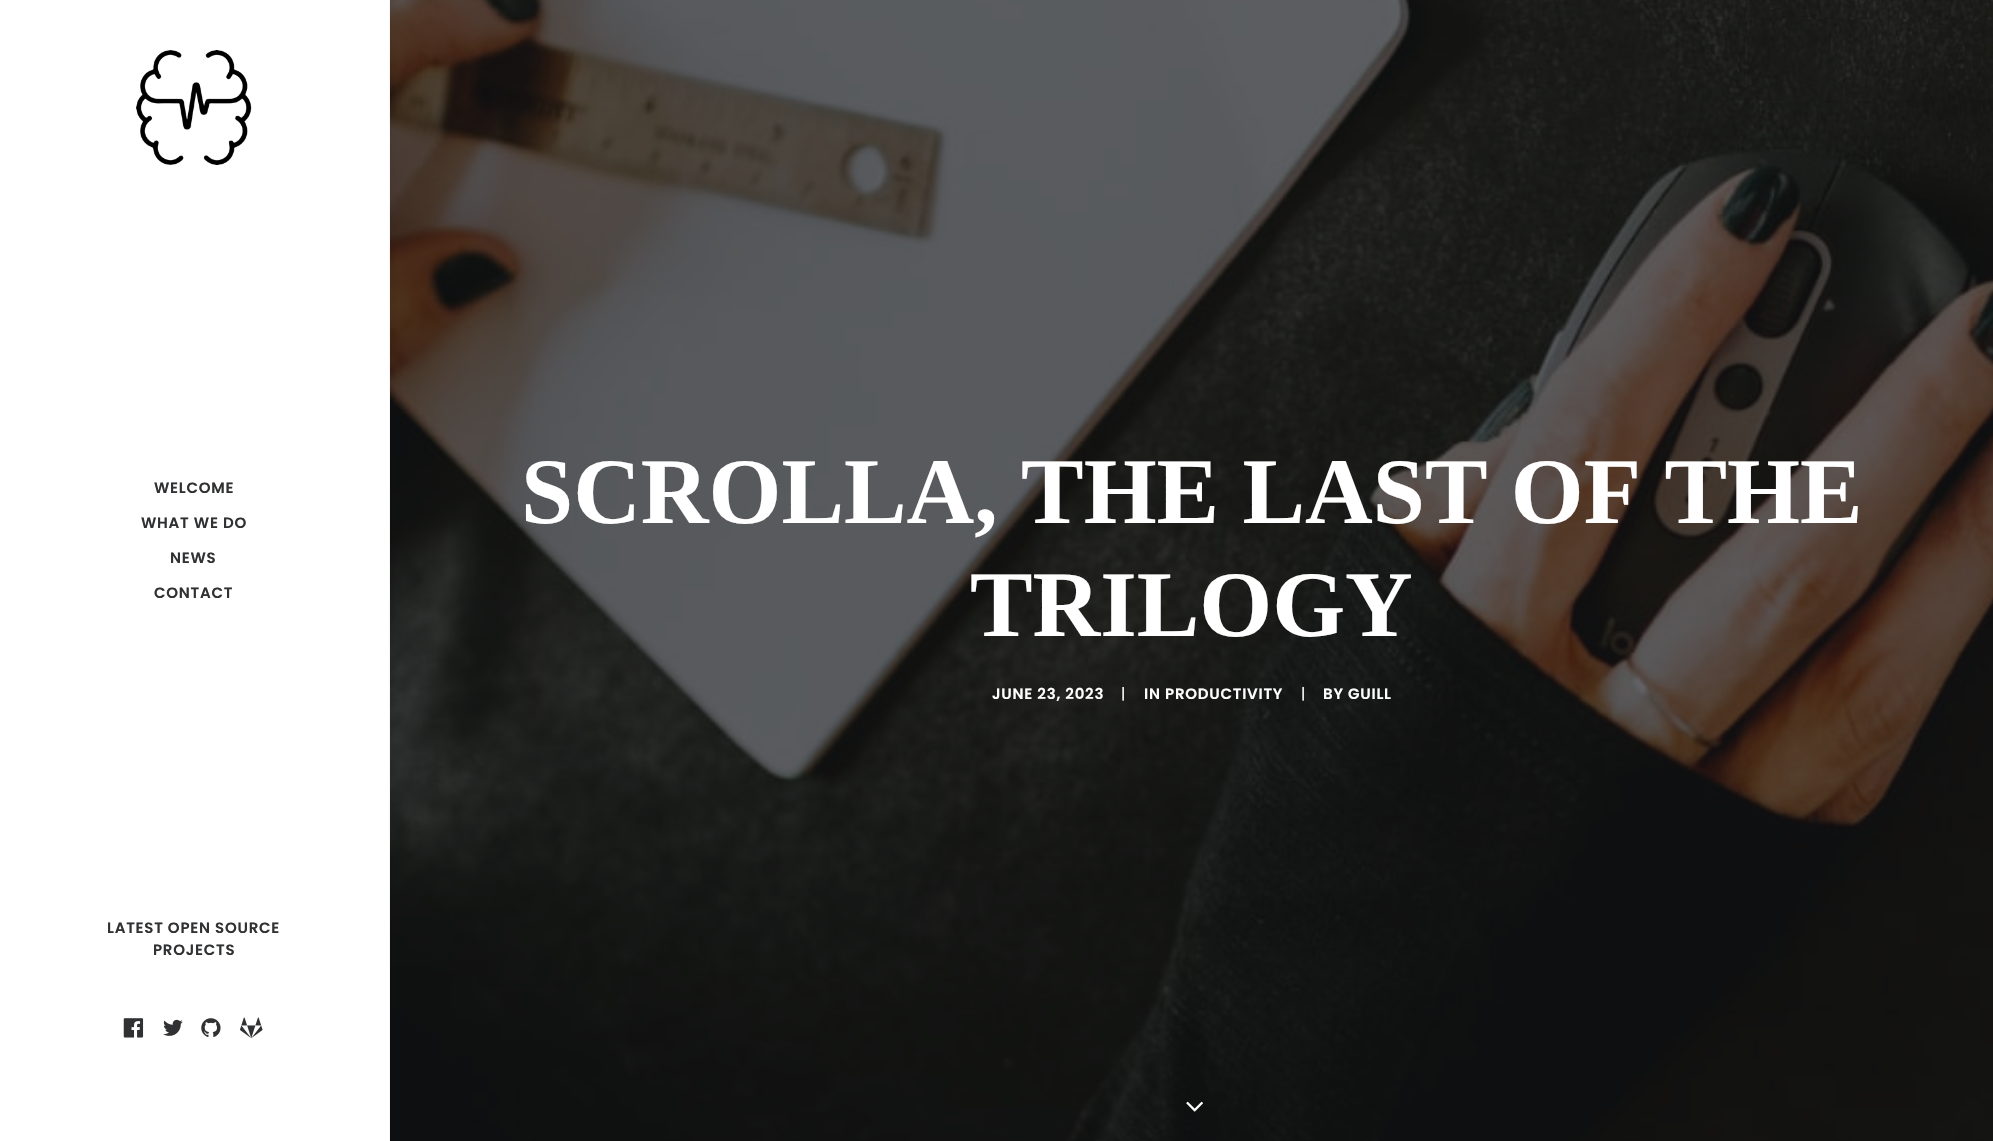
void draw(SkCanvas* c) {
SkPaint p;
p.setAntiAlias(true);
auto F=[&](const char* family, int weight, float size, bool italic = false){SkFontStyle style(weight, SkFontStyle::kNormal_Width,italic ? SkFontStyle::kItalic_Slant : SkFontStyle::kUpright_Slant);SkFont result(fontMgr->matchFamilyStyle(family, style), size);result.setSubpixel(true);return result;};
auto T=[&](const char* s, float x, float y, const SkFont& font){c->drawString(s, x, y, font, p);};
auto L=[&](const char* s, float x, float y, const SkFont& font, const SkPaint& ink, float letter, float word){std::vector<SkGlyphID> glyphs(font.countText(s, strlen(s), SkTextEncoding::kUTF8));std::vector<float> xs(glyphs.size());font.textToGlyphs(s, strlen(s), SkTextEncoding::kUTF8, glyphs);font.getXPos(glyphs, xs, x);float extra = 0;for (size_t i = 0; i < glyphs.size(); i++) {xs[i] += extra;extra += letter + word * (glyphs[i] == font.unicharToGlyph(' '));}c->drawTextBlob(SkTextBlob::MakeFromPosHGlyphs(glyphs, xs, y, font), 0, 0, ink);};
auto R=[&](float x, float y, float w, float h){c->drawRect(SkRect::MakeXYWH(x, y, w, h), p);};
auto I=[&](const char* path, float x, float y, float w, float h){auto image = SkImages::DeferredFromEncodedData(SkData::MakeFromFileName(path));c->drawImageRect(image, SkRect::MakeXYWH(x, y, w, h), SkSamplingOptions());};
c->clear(0xffffffff);
I("6.png",390,0,1603,1141);
p.setColor(0x1a000000);
p.setMaskFilter(SkMaskFilter::MakeBlur(kNormal_SkBlurStyle, 4.5));
c->drawRect(SkRect::MakeXYWH(1,1,388,1139),p);
p.setMaskFilter(nullptr);
p.setColor(0xffffffff);
R(0,0,389,1141);
p.setColor(0xfff5f5f5);
R(389,0,1,1141);
I("1.png",136,50,116,115);
auto f1 = F("Poppins",600,15);
p.setColor(0xff303133);
L("WELCOME",154,493,f1,p,.75,0);
L("WHAT WE DO",141,528,f1,p,.75,0);
L("NEWS",170,563,f1,p,.75,0);
L("CONTACT",154,598,f1,p,.75,0);
L("LATEST OPEN SOURCE",107,933,f1,p,.75,0);
L("PROJECTS",153,955,f1,p,.75,0);
I("2.png",123,1018,21,20);
I("3.png",163,1019,20,17);
I("4.png",201,1018,20,19);
I("5.png",240,1017,23,22);
auto f2 = F("Liberation Serif",700,93.75);
p.setColor(0xffffffff);
T("SCROLLA, THE LAST OF THE",521,523,f2);
T("TRILOGY",970,636,f2);
L("JUNE 23, 2023",992,699,f1,p,.75,0);
auto f3 = F("Poppins",400,15);
L("|",1121,699,f3,p,.75,0);
L("IN PRODUCTIVITY",1144,699,f1,p,.75,0);
L("|",1301,699,f3,p,.75,0);
L("BY GUILL",1323,699,f1,p,.75,0);
I("7.png",1186,1101,17,11);
}
